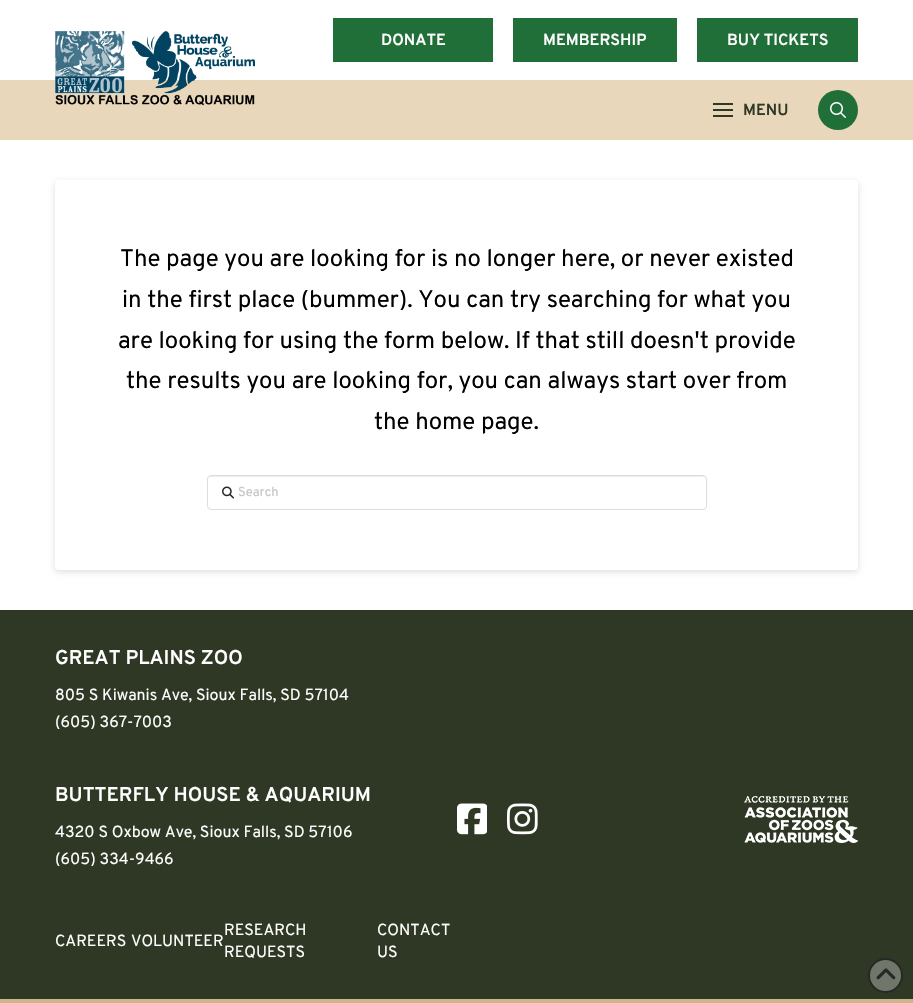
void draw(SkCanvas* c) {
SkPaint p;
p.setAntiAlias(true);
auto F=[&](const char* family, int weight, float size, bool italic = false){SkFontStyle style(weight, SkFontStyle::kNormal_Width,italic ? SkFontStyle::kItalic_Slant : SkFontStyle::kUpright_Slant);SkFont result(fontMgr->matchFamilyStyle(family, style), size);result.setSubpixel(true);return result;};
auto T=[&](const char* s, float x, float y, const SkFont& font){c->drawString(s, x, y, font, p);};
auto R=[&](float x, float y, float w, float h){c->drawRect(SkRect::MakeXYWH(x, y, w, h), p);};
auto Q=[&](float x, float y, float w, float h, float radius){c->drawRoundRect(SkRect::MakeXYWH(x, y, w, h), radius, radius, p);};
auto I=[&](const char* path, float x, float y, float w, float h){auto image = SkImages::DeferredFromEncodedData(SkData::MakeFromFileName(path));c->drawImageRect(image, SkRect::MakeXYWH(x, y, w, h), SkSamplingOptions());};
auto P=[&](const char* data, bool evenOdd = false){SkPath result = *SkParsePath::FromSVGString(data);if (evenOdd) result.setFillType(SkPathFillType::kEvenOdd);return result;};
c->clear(0xffffffff);
p.setColor(0xffe8d7ba);
R(0,80,913,60);
I("1.png",55,31,200,75);
p.setColor(0xff206e38);
R(333,18,160,44);
auto f1 = F("Overpass",600,16);
p.setColor(0xffffffff);
T("DONATE",381,45,f1);
p.setColor(0xff206e38);
R(513,18,164,44);
p.setColor(0xffffffff);
T("MEMBERSHIP",543,45,f1);
p.setColor(0xff206e38);
R(697,18,161,44);
p.setColor(0xffffffff);
T("BUY TICKETS",727,45,f1);
p.setColor(0xff2f3825);
R(713,103,20,2);
R(713,109,20,2);
R(713,115,20,2);
T("MENU",743,115,f1);
p.setColor(0xff206e38);
c->drawCircle(838,110,20,p);
I("2.png",830,102,16,16);
p.setColor(0x21000000);
p.setMaskFilter(SkMaskFilter::MakeBlur(kNormal_SkBlurStyle, 3));
c->drawRoundRect(SkRect::MakeXYWH(55,182,803,390),4,4,p);
p.setMaskFilter(nullptr);
p.setColor(0xffffffff);
Q(55,180,803,390,4);
auto f2 = F("Overpass",400,24);
p.setColor(0xff000000);
T("The page you are looking for is no longer here, or never existed",120,266,f2);
T("in the first place (bummer). You can try searching for what you",122,307,f2);
T("are looking for using the form below. If that still doesn't provide",118,348,f2);
T("the results you are looking for, you can always start over from",126,388,f2);
T("the home page.",374,429,f2);
p.setColor(0xffececec);
c->drawPath(P("M211 477h492c2 0 3 1 3 3c0-2-1-4-3-4h-492c-2 0-3 2-3 4c0-2 1-3 3-3z"),p);
p.setStroke(true);
p.setStrokeWidth(1);
p.setColor(0xffdddddd);
c->drawRoundRect(SkRect::MakeXYWH(207.5,475.5,499,34),3.5,3.5,p);
I("3.png",222,486,12,13);
auto f3 = F("Overpass",400,13);
p.setStroke(false);
p.setColor(0xffc5c5c5);
T("Search",238,496,f3);
p.setColor(0xff2f3825);
R(0,610,913,389);
auto f4 = F("Overpass",600,20);
p.setColor(0xffffffff);
T("GREAT PLAINS ZOO",55,664,f4);
auto f5 = F("Overpass",400,16);
T("805 S Kiwanis Ave, Sioux Falls, SD 57104",55,700,f5);
T("(605) 367-7003",55,727,f5);
T("BUTTERFLY HOUSE & AQUARIUM",55,801,f4);
T("4320 S Oxbow Ave, Sioux Falls, SD 57106",55,837,f5);
T("(605) 334-9466",55,864,f5);
T("CAREERS",55,946,f5);
T("VOLUNTEER",131,946,f5);
T("RESEARCH",224,935,f5);
T("REQUESTS",224,957,f5);
T("CONTACT",377,935,f5);
T("US",377,957,f5);
I("4.png",457,803,30,32);
I("5.png",507,803,31,32);
I("6.png",744,796,114,47);
p.setColor(0xffccb589);
R(0,999,913,4);
p.setColor(0xff707669);
c->drawCircle(885.5,975.5,16.5,p);
p.setStroke(true);
p.setStrokeWidth(2);
p.setColor(0xff272727);
c->drawCircle(885.5,975.5,16.5,p);
I("7.png",876,968,20,12);
}
